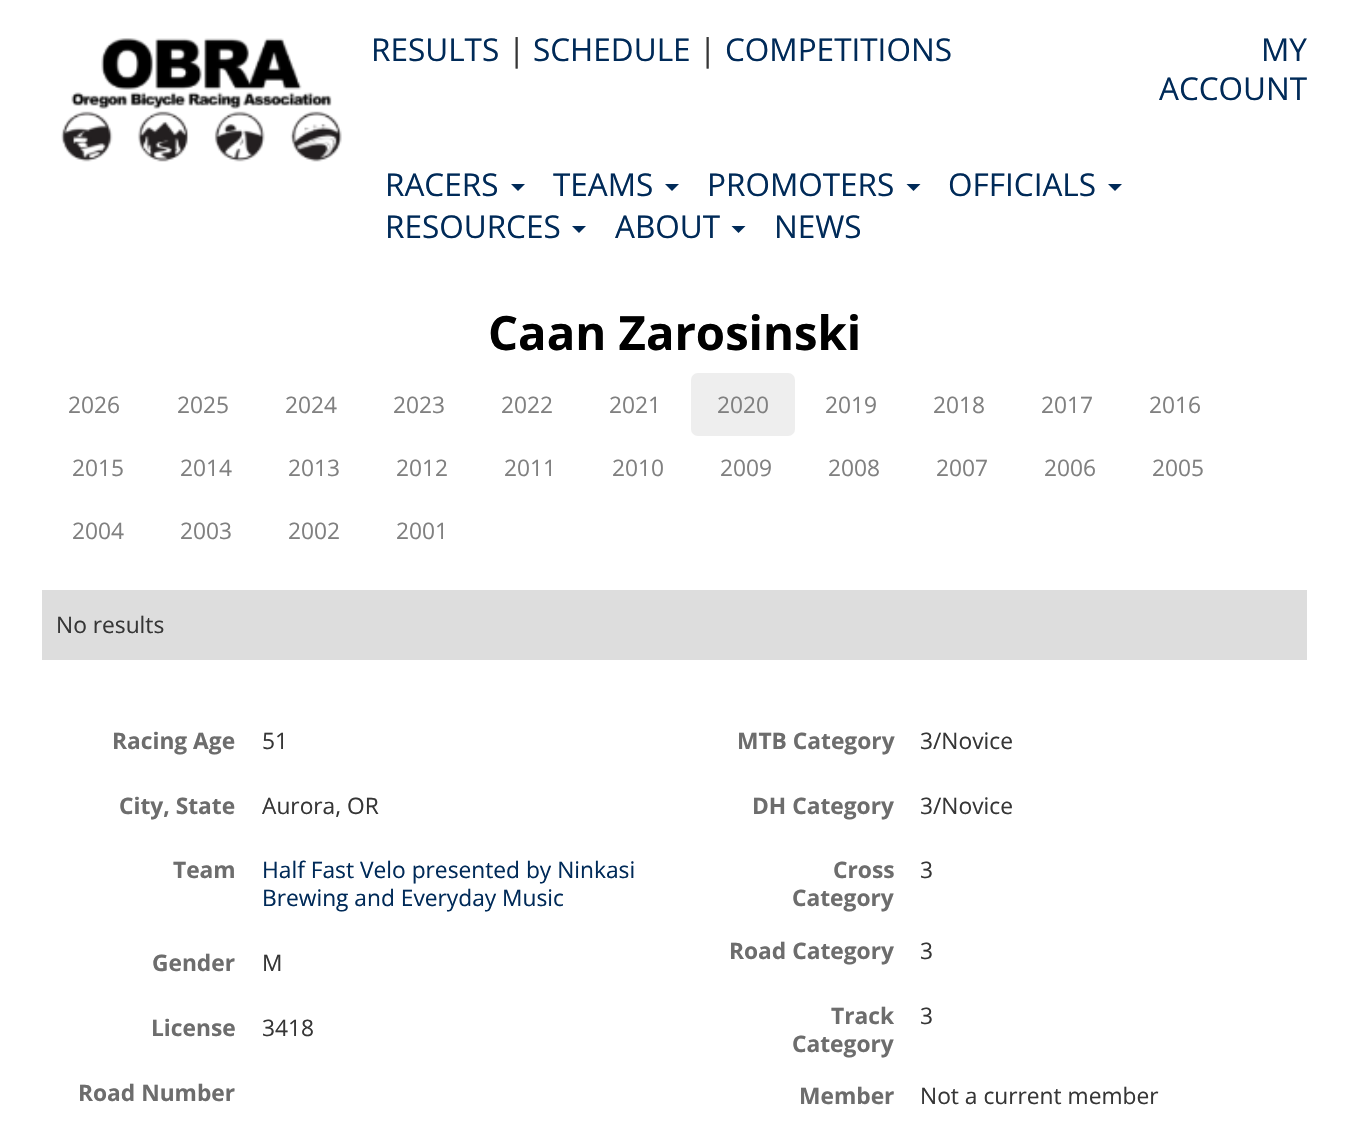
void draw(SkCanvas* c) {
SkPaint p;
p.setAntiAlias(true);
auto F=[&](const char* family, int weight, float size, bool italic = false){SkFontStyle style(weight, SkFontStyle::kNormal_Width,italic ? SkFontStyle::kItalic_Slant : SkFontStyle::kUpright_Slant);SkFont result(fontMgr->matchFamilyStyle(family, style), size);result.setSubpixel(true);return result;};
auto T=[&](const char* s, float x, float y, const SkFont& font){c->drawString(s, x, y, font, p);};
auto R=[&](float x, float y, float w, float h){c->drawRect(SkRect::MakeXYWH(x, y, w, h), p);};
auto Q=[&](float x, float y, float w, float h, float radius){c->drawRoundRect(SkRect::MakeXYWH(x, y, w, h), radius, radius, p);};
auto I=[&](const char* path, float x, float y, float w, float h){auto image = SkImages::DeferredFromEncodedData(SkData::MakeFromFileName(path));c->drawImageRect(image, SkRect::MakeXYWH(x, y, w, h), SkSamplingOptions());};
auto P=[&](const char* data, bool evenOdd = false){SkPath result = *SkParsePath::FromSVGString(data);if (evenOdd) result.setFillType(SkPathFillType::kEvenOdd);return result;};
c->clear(0xffffffff);
I("1.png",61,38,281,124);
auto f1 = F("Open Sans",400,31.5);
p.setColor(0xff002a58);
T("RESULTS",371,61,f1);
p.setColor(0xff363636);
T("|",508,61,f1);
p.setColor(0xff002a58);
T("SCHEDULE",533,61,f1);
p.setColor(0xff363636);
T("|",699,61,f1);
p.setColor(0xff002a58);
T("COMPETITIONS",725,61,f1);
T("MY",1261,61,f1);
T("ACCOUNT",1159,100,f1);
T("RACERS",385,196,f1);
c->drawPath(P("M511 184h14l-7 7z"),p);
T("TEAMS",553,196,f1);
c->drawPath(P("M665 184h14l-7 7z"),p);
T("PROMOTERS",707,196,f1);
c->drawPath(P("M906.5 184h14l-7 7z"),p);
T("OFFICIALS",948,196,f1);
c->drawPath(P("M1108 184h14l-7 7z"),p);
T("RESOURCES",385,238,f1);
c->drawPath(P("M572 226h14l-7 7z"),p);
T("ABOUT",615,238,f1);
c->drawPath(P("M731.5 226h14l-7 7z"),p);
T("NEWS",774,238,f1);
auto f2 = F("Open Sans",700,47.25);
p.setColor(0xff000000);
T("Caan Zarosinski",488,350,f2);
auto f3 = F("Open Sans",400,22.75);
p.setColor(0xff808080);
T("2026",68,413,f3);
T("2025",177,413,f3);
T("2024",285,413,f3);
T("2023",393,413,f3);
T("2022",501,413,f3);
T("2021",609,413,f3);
p.setColor(0xffeeeeee);
Q(691,373,104,63,7);
p.setColor(0xff808080);
T("2020",717,413,f3);
T("2019",825,413,f3);
T("2018",933,413,f3);
T("2017",1041,413,f3);
T("2016",1149,413,f3);
T("2015",72,476,f3);
T("2014",180,476,f3);
T("2013",288,476,f3);
T("2012",396,476,f3);
T("2011",504,476,f3);
T("2010",612,476,f3);
T("2009",720,476,f3);
T("2008",828,476,f3);
T("2007",936,476,f3);
T("2006",1044,476,f3);
T("2005",1152,476,f3);
T("2004",72,539,f3);
T("2003",180,539,f3);
T("2002",288,539,f3);
T("2001",396,539,f3);
p.setColor(0xffdddddd);
R(42,590,1265,70);
p.setColor(0xff363636);
T("No results",56,633,f3);
auto f4 = F("Open Sans",700,22.75);
p.setColor(0xff6d6d6d);
T("Racing Age",112,749,f4);
p.setColor(0xff363636);
T("51",262,749,f3);
p.setColor(0xff6d6d6d);
T("City, State",119,814,f4);
p.setColor(0xff363636);
T("Aurora, OR",262,814,f3);
p.setColor(0xff6d6d6d);
T("Team",173,878,f4);
p.setColor(0xff002a58);
T("Half Fast Velo presented by Ninkasi",262,878,f3);
T("Brewing and Everyday Music",262,906,f3);
p.setColor(0xff6d6d6d);
T("Gender",152,971,f4);
p.setColor(0xff363636);
T("M",262,971,f3);
p.setColor(0xff6d6d6d);
T("License",151,1036,f4);
p.setColor(0xff363636);
T("3418",262,1036,f3);
p.setColor(0xff6d6d6d);
T("Road Number",78,1101,f4);
T("MTB Category",737,749,f4);
p.setColor(0xff363636);
T("3/Novice",920,749,f3);
p.setColor(0xff6d6d6d);
T("DH Category",752,814,f4);
p.setColor(0xff363636);
T("3/Novice",920,814,f3);
p.setColor(0xff6d6d6d);
T("Cross",833,878,f4);
T("Category",792,906,f4);
p.setColor(0xff363636);
T("3",920,878,f3);
p.setColor(0xff6d6d6d);
T("Road Category",729,959,f4);
p.setColor(0xff363636);
T("3",920,959,f3);
p.setColor(0xff6d6d6d);
T("Track",831,1024,f4);
T("Category",792,1052,f4);
p.setColor(0xff363636);
T("3",920,1024,f3);
p.setColor(0xff6d6d6d);
T("Member",799,1104,f4);
p.setColor(0xff363636);
T("Not a current member",920,1104,f3);
}
